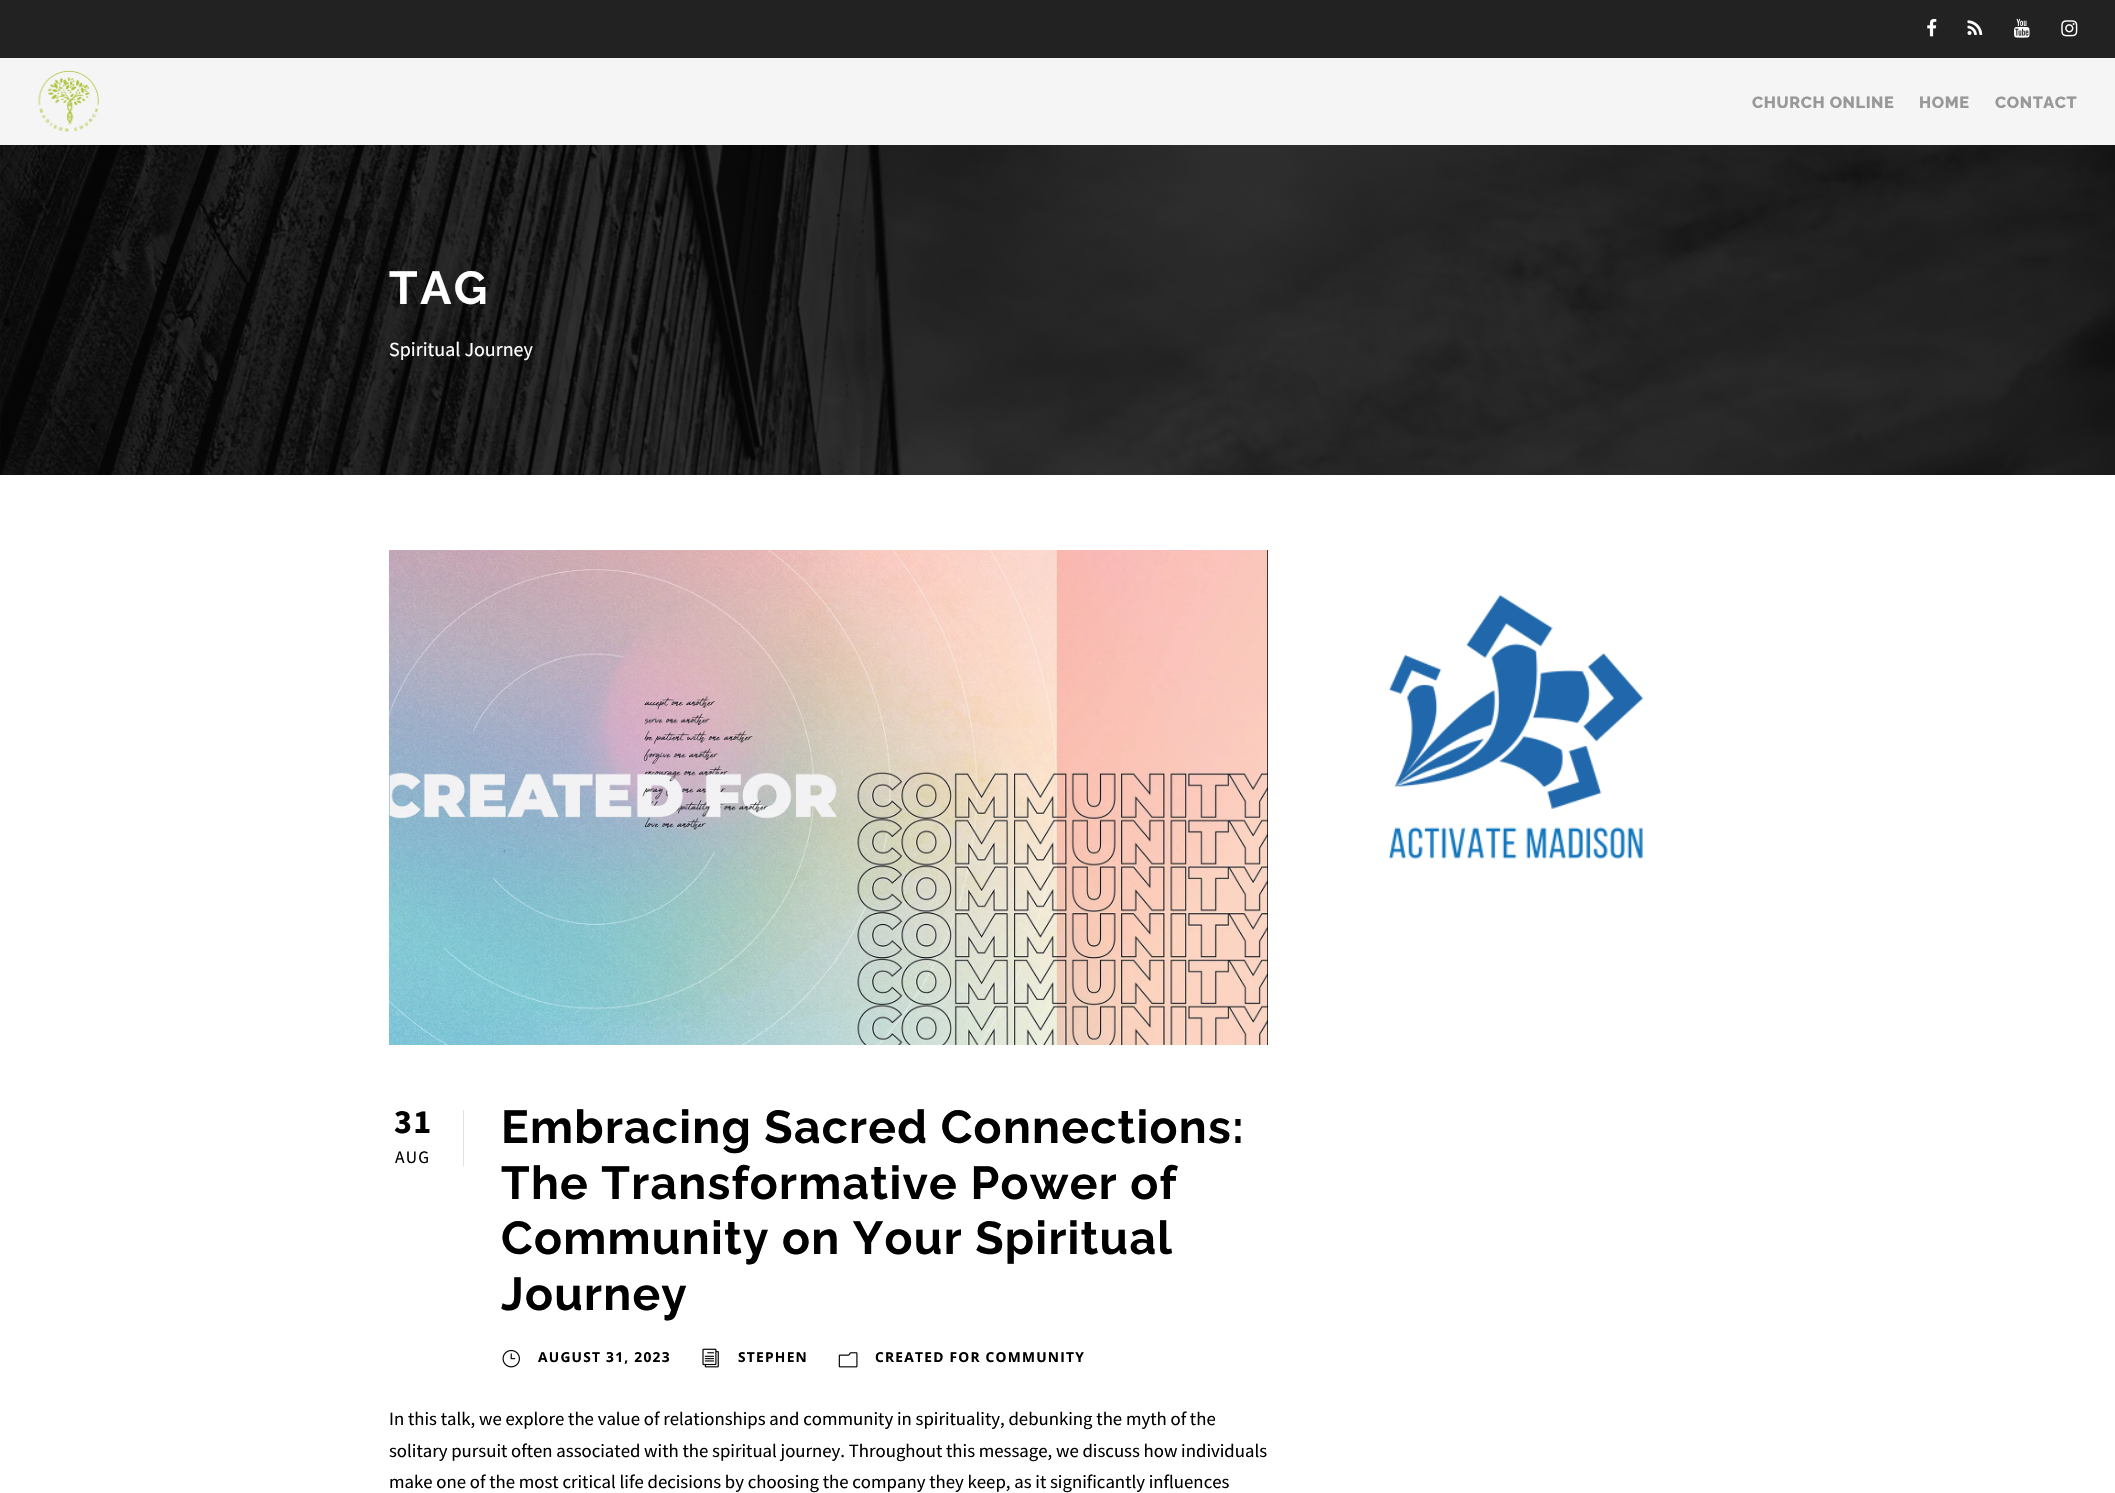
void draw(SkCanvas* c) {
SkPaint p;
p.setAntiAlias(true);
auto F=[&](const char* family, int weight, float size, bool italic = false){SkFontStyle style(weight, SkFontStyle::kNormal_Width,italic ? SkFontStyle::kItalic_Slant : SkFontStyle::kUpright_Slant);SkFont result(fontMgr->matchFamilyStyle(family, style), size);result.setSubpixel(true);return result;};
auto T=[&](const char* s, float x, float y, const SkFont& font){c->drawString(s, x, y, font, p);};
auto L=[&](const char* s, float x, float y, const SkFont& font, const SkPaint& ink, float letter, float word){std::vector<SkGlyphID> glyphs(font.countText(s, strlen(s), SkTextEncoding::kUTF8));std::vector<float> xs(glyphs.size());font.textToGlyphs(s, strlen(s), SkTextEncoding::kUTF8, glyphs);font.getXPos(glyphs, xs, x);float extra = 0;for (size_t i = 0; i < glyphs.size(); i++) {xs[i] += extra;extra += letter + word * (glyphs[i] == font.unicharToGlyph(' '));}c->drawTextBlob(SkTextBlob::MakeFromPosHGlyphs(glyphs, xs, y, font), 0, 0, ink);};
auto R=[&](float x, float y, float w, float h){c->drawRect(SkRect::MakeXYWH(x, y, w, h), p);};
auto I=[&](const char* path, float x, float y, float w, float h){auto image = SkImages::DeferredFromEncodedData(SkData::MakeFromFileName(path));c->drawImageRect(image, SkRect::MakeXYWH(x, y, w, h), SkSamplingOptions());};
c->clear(0xffffffff);
p.setColor(0xff222222);
R(0,0,2115,58);
I("1.png",1927,18,10,19);
I("2.png",1967,20,16,15);
I("3.png",2014,18,16,20);
I("4.png",2061,20,17,17);
p.setColor(0xfff5f5f5);
R(0,58,2115,87);
I("5.png",38,70,62,62);
auto f1 = F("Raleway",800,16.25);
p.setColor(0xff999999);
L("CHURCH ONLINE",1752,108,f1,p,.6,0);
L("HOME",1919,108,f1,p,.6,0);
L("CONTACT",1995,108,f1,p,.6,0);
I("6.png",0,145,2115,330);
auto f2 = F("Raleway",700,46.25);
p.setColor(0xffffffff);
L("TAG",389,304,f2,p,2.5,0);
auto f3 = F("Source Sans Pro",400,20);
T("Spiritual Journey",389,356,f3);
I("7.png",1388,594,255,265);
p.setColor(0xff000000);
R(1267,550,1,495);
I("8.png",388,550,880,495);
p.setColor(0xffe2e2e2);
R(463,1110,1,56);
auto f4 = F("Source Sans Pro",700,34);
p.setColor(0xff000000);
L("31",394,1133,f4,p,1.25,0);
auto f5 = F("Source Sans Pro",400,17.5);
L("AUG",395,1163,f5,p,1.25,0);
L("Embracing Sacred Connections:",501,1143,f2,p,1.25,0);
L("The Transformative Power of",501,1199,f2,p,1.25,0);
L("Community on Your Spiritual",501,1254,f2,p,1.25,0);
L("Journey",501,1310,f2,p,1.25,0);
I("9.png",502,1349,18,19);
auto f6 = F("Open Sans",700,13.75);
L("AUGUST 31, 2023",538,1362,f6,p,1.25,0);
I("10.png",702,1348,17,20);
L("STEPHEN",738,1362,f6,p,1.25,0);
I("11.png",838,1352,20,16);
L("CREATED FOR COMMUNITY",875,1362,f6,p,1.25,0);
auto f7 = F("Source Sans Pro",400,18.75);
T("In this talk, we explore the value of relationships and community in spirituality, debunking the myth of the",389,1425,f7);
T("solitary pursuit often associated with the spiritual journey. Throughout this message, we discuss how individuals",389,1457,f7);
T("make one of the most critical life decisions by choosing the company they keep, as it significantly influences",389,1488,f7);
}
